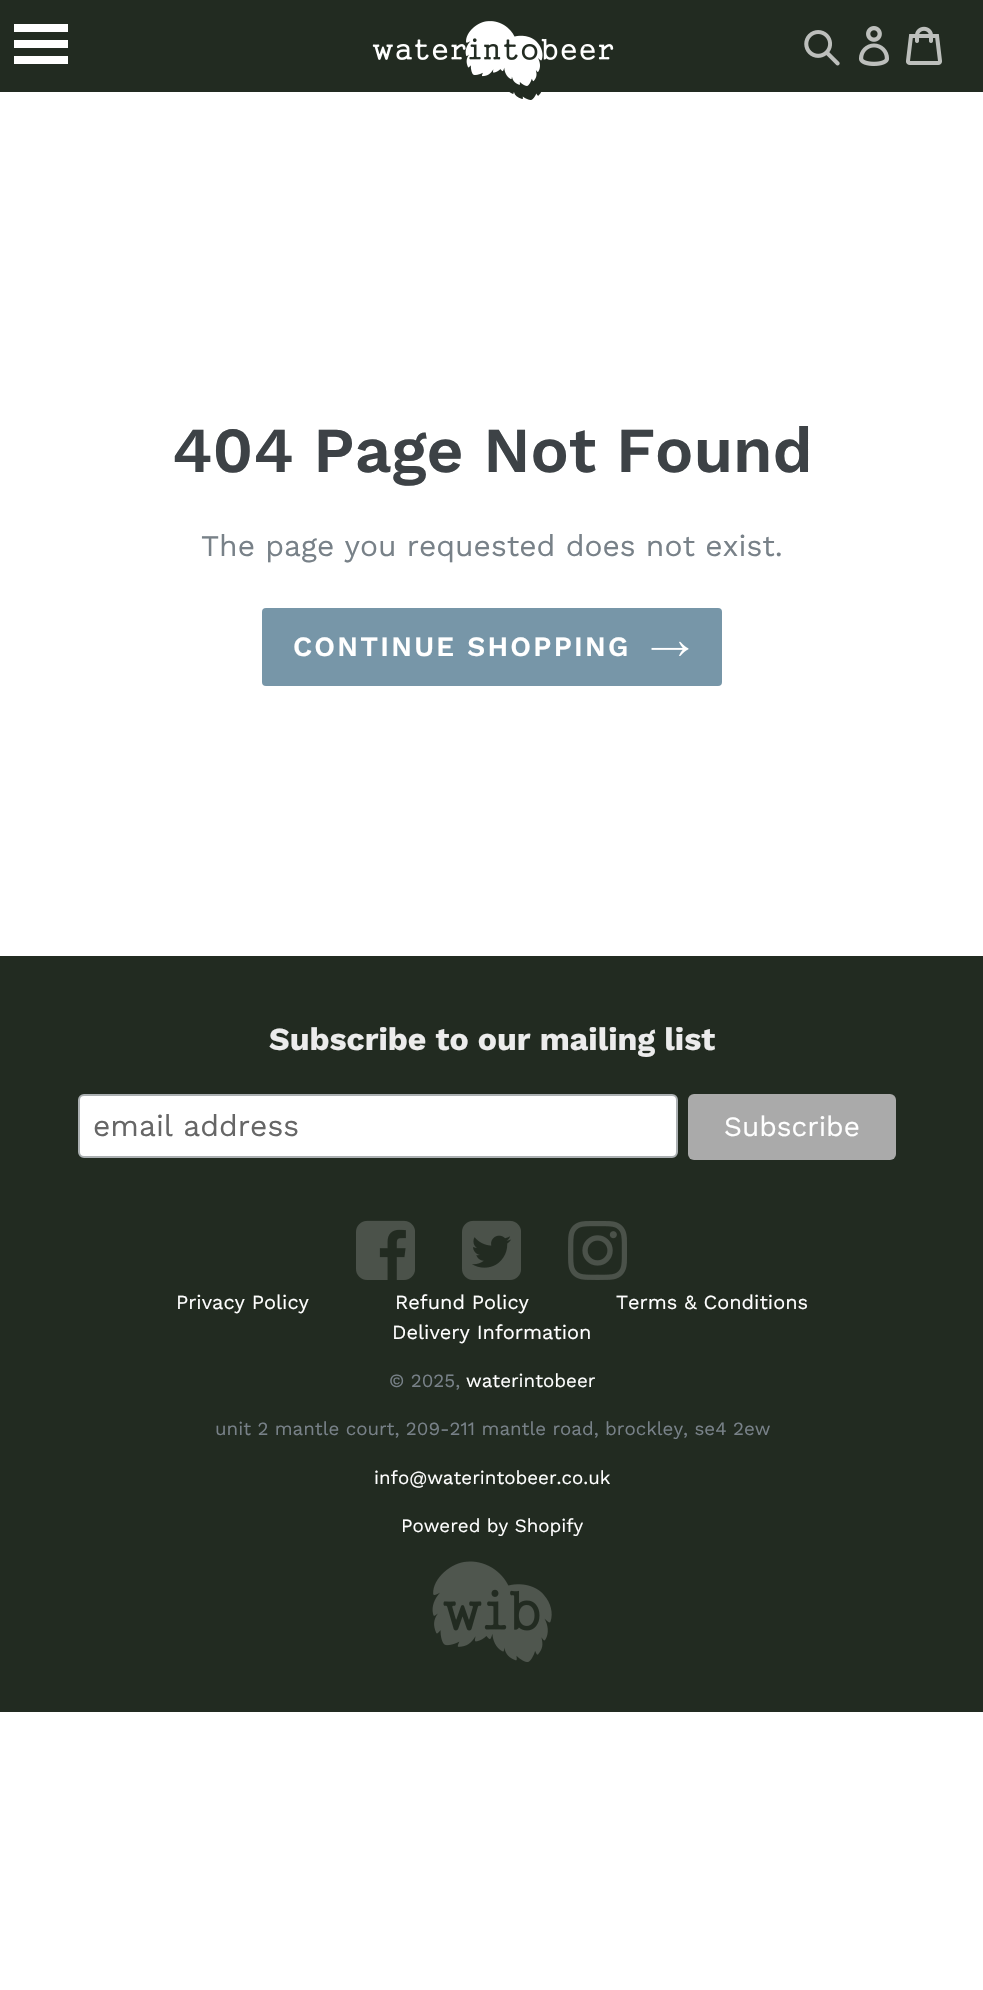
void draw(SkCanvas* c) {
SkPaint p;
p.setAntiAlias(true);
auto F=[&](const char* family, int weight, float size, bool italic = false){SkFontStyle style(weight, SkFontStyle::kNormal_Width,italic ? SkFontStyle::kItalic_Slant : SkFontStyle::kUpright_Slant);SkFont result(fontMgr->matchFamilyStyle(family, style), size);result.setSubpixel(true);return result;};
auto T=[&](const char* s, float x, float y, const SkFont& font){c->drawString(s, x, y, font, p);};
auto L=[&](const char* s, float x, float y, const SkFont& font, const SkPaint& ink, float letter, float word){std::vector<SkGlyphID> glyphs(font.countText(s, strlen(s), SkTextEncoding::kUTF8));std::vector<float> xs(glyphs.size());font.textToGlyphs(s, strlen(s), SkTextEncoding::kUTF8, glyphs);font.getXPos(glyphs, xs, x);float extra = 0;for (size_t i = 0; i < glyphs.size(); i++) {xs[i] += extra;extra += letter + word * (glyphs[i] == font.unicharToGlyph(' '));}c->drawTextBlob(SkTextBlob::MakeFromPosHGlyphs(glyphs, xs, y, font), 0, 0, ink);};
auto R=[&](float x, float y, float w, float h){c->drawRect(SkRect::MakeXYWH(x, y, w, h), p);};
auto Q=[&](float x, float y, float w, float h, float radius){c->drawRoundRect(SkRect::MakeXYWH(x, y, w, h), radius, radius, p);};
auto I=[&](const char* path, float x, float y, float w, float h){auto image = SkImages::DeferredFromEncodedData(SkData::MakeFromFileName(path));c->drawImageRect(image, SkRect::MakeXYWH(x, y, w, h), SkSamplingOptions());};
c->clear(0xffffffff);
p.setColor(0xff222b21);
R(0,0,983,92);
p.setColor(0xffffffff);
R(14,24,54,8);
R(14,40,54,8);
R(14,56,54,8);
I("1.png",372,21,242,65);
I("2.png",509,92,33,8);
I("3.png",804,30,36,36);
I("4.png",859,26,30,40);
I("5.png",906,26,36,39);
auto f1 = F("Work Sans",600,64);
p.setColor(0xff3d4246);
T("404 Page Not Found",172,472,f1);
auto f2 = F("Work Sans",400,30);
p.setColor(0xff788188);
T("The page you requested does not exist.",201,556,f2);
p.setColor(0xff7796a8);
Q(262,608,460,78,4);
auto f3 = F("Work Sans",600,28);
p.setColor(0xffffffff);
L("CONTINUE SHOPPING",293,656,f3,p,2.25,0);
I("6.png",651,641,38,15);
p.setColor(0xff222b21);
R(0,956,983,756);
auto f4 = F("Work Sans",700,32);
p.setColor(0xffececec);
T("Subscribe to our mailing list",269,1050,f4);
p.setColor(0xffffffff);
c->drawRoundRect(SkRect::MakeXYWH(79,1095,598,62),5,5,p);
p.setStroke(true);
p.setStrokeWidth(2);
p.setColor(0xffabb0b2);
c->drawRoundRect(SkRect::MakeXYWH(79,1095,598,62),5,5,p);
p.setStroke(false);
p.setColor(0xff666666);
T("email address",93,1136,f2);
p.setColor(0xffaaaaaa);
Q(688,1094,208,66,6);
auto f5 = F("Work Sans",400,28);
p.setColor(0xffffffff);
T("Subscribe",724,1136,f5);
I("7.png",356,1220,59,60);
I("8.png",462,1220,59,60);
I("9.png",568,1221,59,59);
auto f6 = F("Work Sans",400,20);
T("Privacy Policy",176,1309,f6);
T("Refund Policy",395,1309,f6);
T("Terms & Conditions",616,1309,f6);
T("Delivery Information",392,1339,f6);
auto f7 = F("Work Sans",400,18.75);
p.setColor(0xff788188);
T("© 2025,",389,1387,f7);
p.setColor(0xffffffff);
T("waterintobeer",466,1387,f7);
p.setColor(0xff788188);
T("unit 2 mantle court, 209-211 mantle road, brockley, se4 2ew",215,1435,f7);
p.setColor(0xffffffff);
T("info@waterintobeer.co.uk",374,1484,f7);
T("Powered by Shopify",401,1532,f7);
I("10.png",432,1561,120,101);
}
